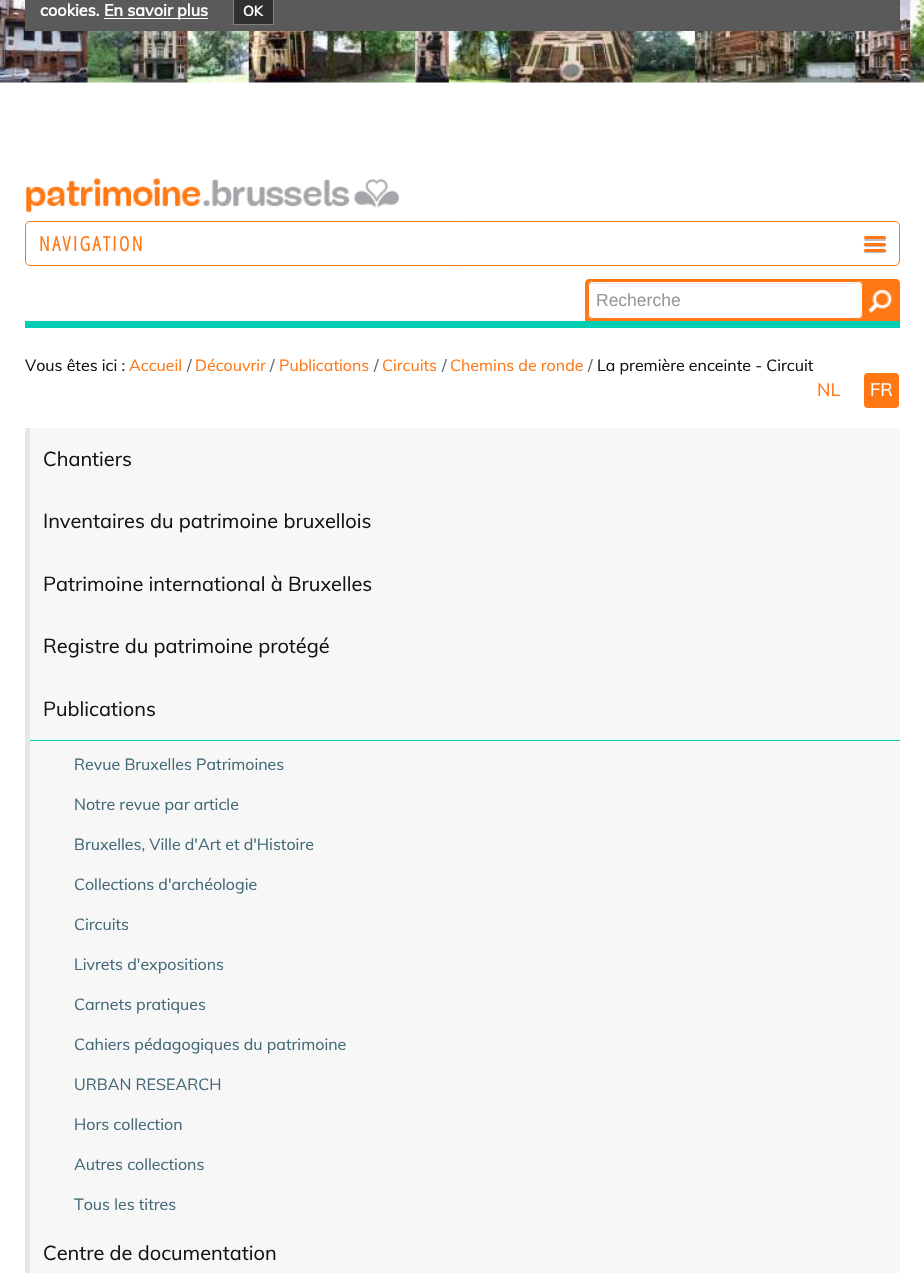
void draw(SkCanvas* c) {
SkPaint p;
p.setAntiAlias(true);
auto F=[&](const char* family, int weight, float size, bool italic = false){SkFontStyle style(weight, SkFontStyle::kNormal_Width,italic ? SkFontStyle::kItalic_Slant : SkFontStyle::kUpright_Slant);SkFont result(fontMgr->matchFamilyStyle(family, style), size);result.setSubpixel(true);return result;};
auto T=[&](const char* s, float x, float y, const SkFont& font){c->drawString(s, x, y, font, p);};
auto L=[&](const char* s, float x, float y, const SkFont& font, const SkPaint& ink, float letter, float word){std::vector<SkGlyphID> glyphs(font.countText(s, strlen(s), SkTextEncoding::kUTF8));std::vector<float> xs(glyphs.size());font.textToGlyphs(s, strlen(s), SkTextEncoding::kUTF8, glyphs);font.getXPos(glyphs, xs, x);float extra = 0;for (size_t i = 0; i < glyphs.size(); i++) {xs[i] += extra;extra += letter + word * (glyphs[i] == font.unicharToGlyph(' '));}c->drawTextBlob(SkTextBlob::MakeFromPosHGlyphs(glyphs, xs, y, font), 0, 0, ink);};
auto R=[&](float x, float y, float w, float h){c->drawRect(SkRect::MakeXYWH(x, y, w, h), p);};
auto Q=[&](float x, float y, float w, float h, float radius){c->drawRoundRect(SkRect::MakeXYWH(x, y, w, h), radius, radius, p);};
auto I=[&](const char* path, float x, float y, float w, float h){auto image = SkImages::DeferredFromEncodedData(SkData::MakeFromFileName(path));c->drawImageRect(image, SkRect::MakeXYWH(x, y, w, h), SkSamplingOptions());};
auto P=[&](const char* data, bool evenOdd = false){SkPath result = *SkParsePath::FromSVGString(data);if (evenOdd) result.setFillType(SkPathFillType::kEvenOdd);return result;};
c->clear(0xffffffff);
I("1.png",0,0,924,83);
p.setColor(0xff5a5a5a);
R(25,0,875,31);
auto f1 = F("Muli",700,16.25);
p.setColor(0xffffffff);
T("cookies.",40,16,f1);
R(104,18,104,1);
T("En savoir plus",104,16,f1);
p.setColor(0xff303030);
c->drawRect(SkRect::MakeXYWH(233.5,-.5,40,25),p);
p.setStroke(true);
p.setStrokeWidth(1);
p.setColor(0xff808080);
c->drawRect(SkRect::MakeXYWH(233.5,-.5,40,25),p);
auto f2 = F("Muli",700,14);
p.setStroke(false);
p.setColor(0xffffffff);
T("OK",243,16,f2);
I("2.png",26,178,373,34);
p.setStroke(true);
p.setColor(0xffff7814);
c->drawRoundRect(SkRect::MakeXYWH(25.5,221.5,874,44),4.5,4.5,p);
auto f3 = F("Open Sans Condensed",700,20);
p.setStroke(false);
L("NAVIGATION",39,251,f3,p,2.5,0);
p.setColor(0xffbfbfbf);
c->drawPath(P("M864.5 238.5l-.5 1.5c.5 1.5 3.5 1 4.5 1h13c1 0 4 .5 4.5-1l-.5-1.5z"),p);
p.setColor(0xffff7814);
Q(864,236,22,3,1.5);
p.setColor(0xffbfbfbf);
c->drawPath(P("M864 244.5c-1.5 3 4 2.5 4.5 2.5h13c.5 0 6 .5 4.5-2.5c-1 .5-21 .5-22 0z"),p);
p.setColor(0xffff7814);
Q(864,243,22,3,1.5);
p.setColor(0xffbfbfbf);
c->drawPath(P("M864 251c-1 2.5 4 2 4.5 2h13c.5 0 5.5 .5 4.5-2c-1 .5-21 .5-22 0z"),p);
p.setColor(0xffff7814);
Q(864,249,22,3,1.5);
c->drawPath(P("M589 279h307c2 0 4 2 4 4v38h-315v-38c0-2 2-4 4-4z"),p);
p.setColor(0xffffffff);
Q(588,281,275,38,5);
p.setColor(0xffececec);
c->drawPath(P("M592 284h266c2 0 3 1 3 4c0-3-1-5-4-5h-264c-3 0-4 2-4 5c0-3 1-4 3-4z"),p);
p.setStroke(true);
p.setColor(0xffff7814);
c->drawRoundRect(SkRect::MakeXYWH(588.5,281.5,274,37),4.5,4.5,p);
auto f4 = F("Liberation Sans",400,17.5);
p.setStroke(false);
p.setColor(0xff999999);
T("Recherche",596,306,f4);
I("3.png",868,289,24,24);
p.setColor(0xff00cdb4);
R(25,321,875,7);
auto f5 = F("Muli",400,16);
p.setColor(0xff141414);
T("Vous êtes ici :",25,371,f5);
p.setColor(0xffff7814);
T("Accueil",129,371,f5);
p.setColor(0xff666666);
T("/",187,371,f5);
p.setColor(0xffff7814);
T("Découvrir",195,371,f5);
p.setColor(0xff666666);
T("/",270,371,f5);
p.setColor(0xffff7814);
T("Publications",279,371,f5);
p.setColor(0xff666666);
T("/",374,371,f5);
p.setColor(0xffff7814);
T("Circuits",382,371,f5);
p.setColor(0xff666666);
T("/",442,371,f5);
p.setColor(0xffff7814);
T("Chemins de ronde",450,371,f5);
p.setColor(0xff666666);
T("/",588,371,f5);
p.setColor(0xff141414);
T("La première enceinte - Circuit",597,371,f5);
auto f6 = F("Muli",400,18);
p.setColor(0xffff7814);
T("NL",817,396,f6);
Q(864,373,35,35,4);
p.setColor(0xffffffff);
T("FR",870,396,f6);
p.setColor(0xfff7f7f7);
Q(25,428,875,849,4);
p.setColor(0xffe7e7e7);
R(25,428,5,845);
auto f7 = F("Muli",400,20);
p.setColor(0xff141414);
T("Chantiers",43,466,f7);
T("Inventaires du patrimoine bruxellois",43,528,f7);
T("Patrimoine international à Bruxelles",43,591,f7);
T("Registre du patrimoine protégé",43,653,f7);
p.setColor(0xff00cdb4);
R(30,740,870,1);
p.setColor(0xff141414);
T("Publications",43,716,f7);
p.setColor(0xff436976);
T("Revue Bruxelles Patrimoines",74,770,f5);
T("Notre revue par article",74,810,f5);
T("Bruxelles, Ville d'Art et d'Histoire",74,850,f5);
T("Collections d'archéologie",74,890,f5);
T("Circuits",74,930,f5);
T("Livrets d'expositions",74,970,f5);
T("Carnets pratiques",74,1010,f5);
T("Cahiers pédagogiques du patrimoine",74,1050,f5);
T("URBAN RESEARCH",74,1090,f5);
T("Hors collection",74,1130,f5);
T("Autres collections",74,1170,f5);
T("Tous les titres",74,1210,f5);
p.setColor(0xff141414);
T("Centre de documentation",43,1260,f7);
}
